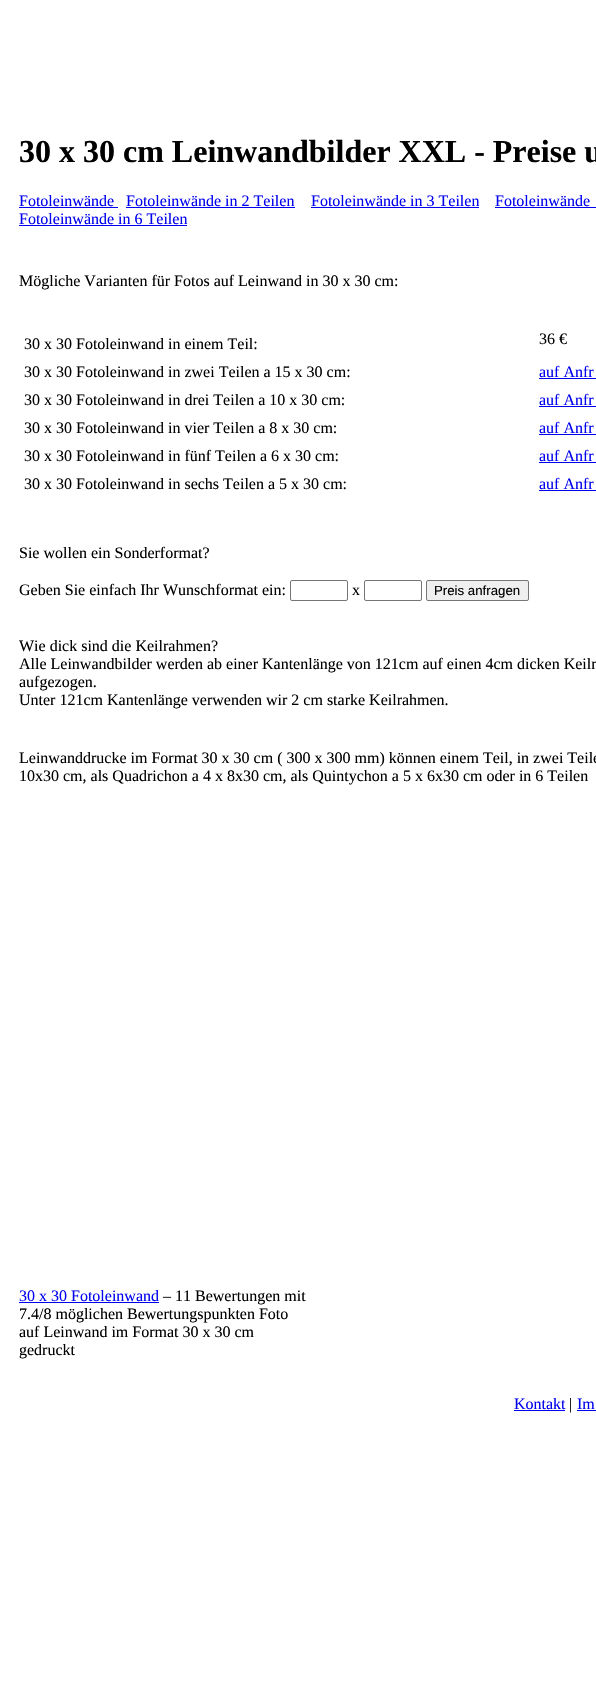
void draw(SkCanvas* c) {
SkPaint p;
p.setAntiAlias(true);
auto F=[&](const char* family, int weight, float size, bool italic = false){SkFontStyle style(weight, SkFontStyle::kNormal_Width,italic ? SkFontStyle::kItalic_Slant : SkFontStyle::kUpright_Slant);SkFont result(fontMgr->matchFamilyStyle(family, style), size);result.setSubpixel(true);return result;};
auto T=[&](const char* s, float x, float y, const SkFont& font){c->drawString(s, x, y, font, p);};
auto R=[&](float x, float y, float w, float h){c->drawRect(SkRect::MakeXYWH(x, y, w, h), p);};
c->clear(0xffffffff);
auto f1 = F("Liberation Serif",700,32);
p.setColor(0xff000000);
T("30 x 30 cm Leinwandbilder XXL - Preise u",19,162,f1);
auto f2 = F("Liberation Serif",400,16);
p.setColor(0xff0000ee);
T("Fotoleinwände",19,206,f2);
R(19,207,99,1);
T("Fotoleinwände in 2 Teilen",126,206,f2);
R(126,207,169,1);
T("Fotoleinwände in 3 Teilen",311,206,f2);
R(311,207,168,1);
T("Fotoleinwände",495,206,f2);
R(495,207,101,1);
T("Fotoleinwände in 6 Teilen",19,224,f2);
R(19,225,168,1);
p.setColor(0xff000000);
T("Mögliche Varianten für Fotos auf Leinwand in 30 x 30 cm:",19,286,f2);
T("30 x 30 Fotoleinwand in einem Teil:",24,349,f2);
T("36 €",539,344,f2);
T("30 x 30 Fotoleinwand in zwei Teilen a 15 x 30 cm:",24,377,f2);
p.setColor(0xff0000ee);
T("auf Anfr",539,377,f2);
R(539,378,57,1);
p.setColor(0xff000000);
T("30 x 30 Fotoleinwand in drei Teilen a 10 x 30 cm:",24,405,f2);
p.setColor(0xff0000ee);
T("auf Anfr",539,405,f2);
R(539,406,57,1);
p.setColor(0xff000000);
T("30 x 30 Fotoleinwand in vier Teilen a 8 x 30 cm:",24,433,f2);
p.setColor(0xff0000ee);
T("auf Anfr",539,433,f2);
R(539,434,57,1);
p.setColor(0xff000000);
T("30 x 30 Fotoleinwand in fünf Teilen a 6 x 30 cm:",24,461,f2);
p.setColor(0xff0000ee);
T("auf Anfr",539,461,f2);
R(539,462,57,1);
p.setColor(0xff000000);
T("30 x 30 Fotoleinwand in sechs Teilen a 5 x 30 cm:",24,489,f2);
p.setColor(0xff0000ee);
T("auf Anfr",539,489,f2);
R(539,490,57,1);
p.setColor(0xff000000);
T("Sie wollen ein Sonderformat?",19,558,f2);
T("Geben Sie einfach Ihr Wunschformat ein:",19,595,f2);
p.setStroke(true);
p.setStrokeWidth(1);
p.setColor(0xff767676);
c->drawRoundRect(SkRect::MakeXYWH(290.5,580.5,57,20),1.5,1.5,p);
p.setStroke(false);
p.setColor(0xff000000);
T("x",352,595,f2);
p.setStroke(true);
p.setColor(0xff767676);
c->drawRoundRect(SkRect::MakeXYWH(364.5,580.5,57,20),1.5,1.5,p);
p.setStroke(false);
p.setColor(0xffefefef);
c->drawRoundRect(SkRect::MakeXYWH(426.5,580.5,102,20),1.5,1.5,p);
p.setStroke(true);
p.setColor(0xff767676);
c->drawRoundRect(SkRect::MakeXYWH(426.5,580.5,102,20),1.5,1.5,p);
auto f3 = F("Liberation Sans",400,13.25);
p.setStroke(false);
p.setColor(0xff000000);
T("Preis anfragen",434,595,f3);
T("Wie dick sind die Keilrahmen?",19,651,f2);
T("Alle Leinwandbilder werden ab einer Kantenlänge von 121cm auf einen 4cm dicken Keilr",19,669,f2);
T("aufgezogen.",19,687,f2);
T("Unter 121cm Kantenlänge verwenden wir 2 cm starke Keilrahmen.",19,705,f2);
T("Leinwanddrucke im Format 30 x 30 cm ( 300 x 300 mm) können einem Teil, in zwei Teile",19,763,f2);
T("10x30 cm, als Quadrichon a 4 x 8x30 cm, als Quintychon a 5 x 6x30 cm oder in 6 Teilen",19,781,f2);
p.setColor(0xff0000ee);
T("30 x 30 Fotoleinwand",19,1301,f2);
p.setColor(0xff000000);
T("– 11 Bewertungen mit",163,1301,f2);
p.setColor(0xff0000ee);
R(19,1302,140,1);
p.setColor(0xff000000);
T("7.4/8 möglichen Bewertungspunkten Foto",19,1319,f2);
T("auf Leinwand im Format 30 x 30 cm",19,1337,f2);
T("gedruckt",19,1355,f2);
p.setColor(0xff0000ee);
T("Kontakt",514,1409,f2);
R(514,1410,51,1);
p.setColor(0xff000000);
T("|",569,1409,f2);
p.setColor(0xff0000ee);
T("Im",577,1409,f2);
R(577,1410,19,1);
}
